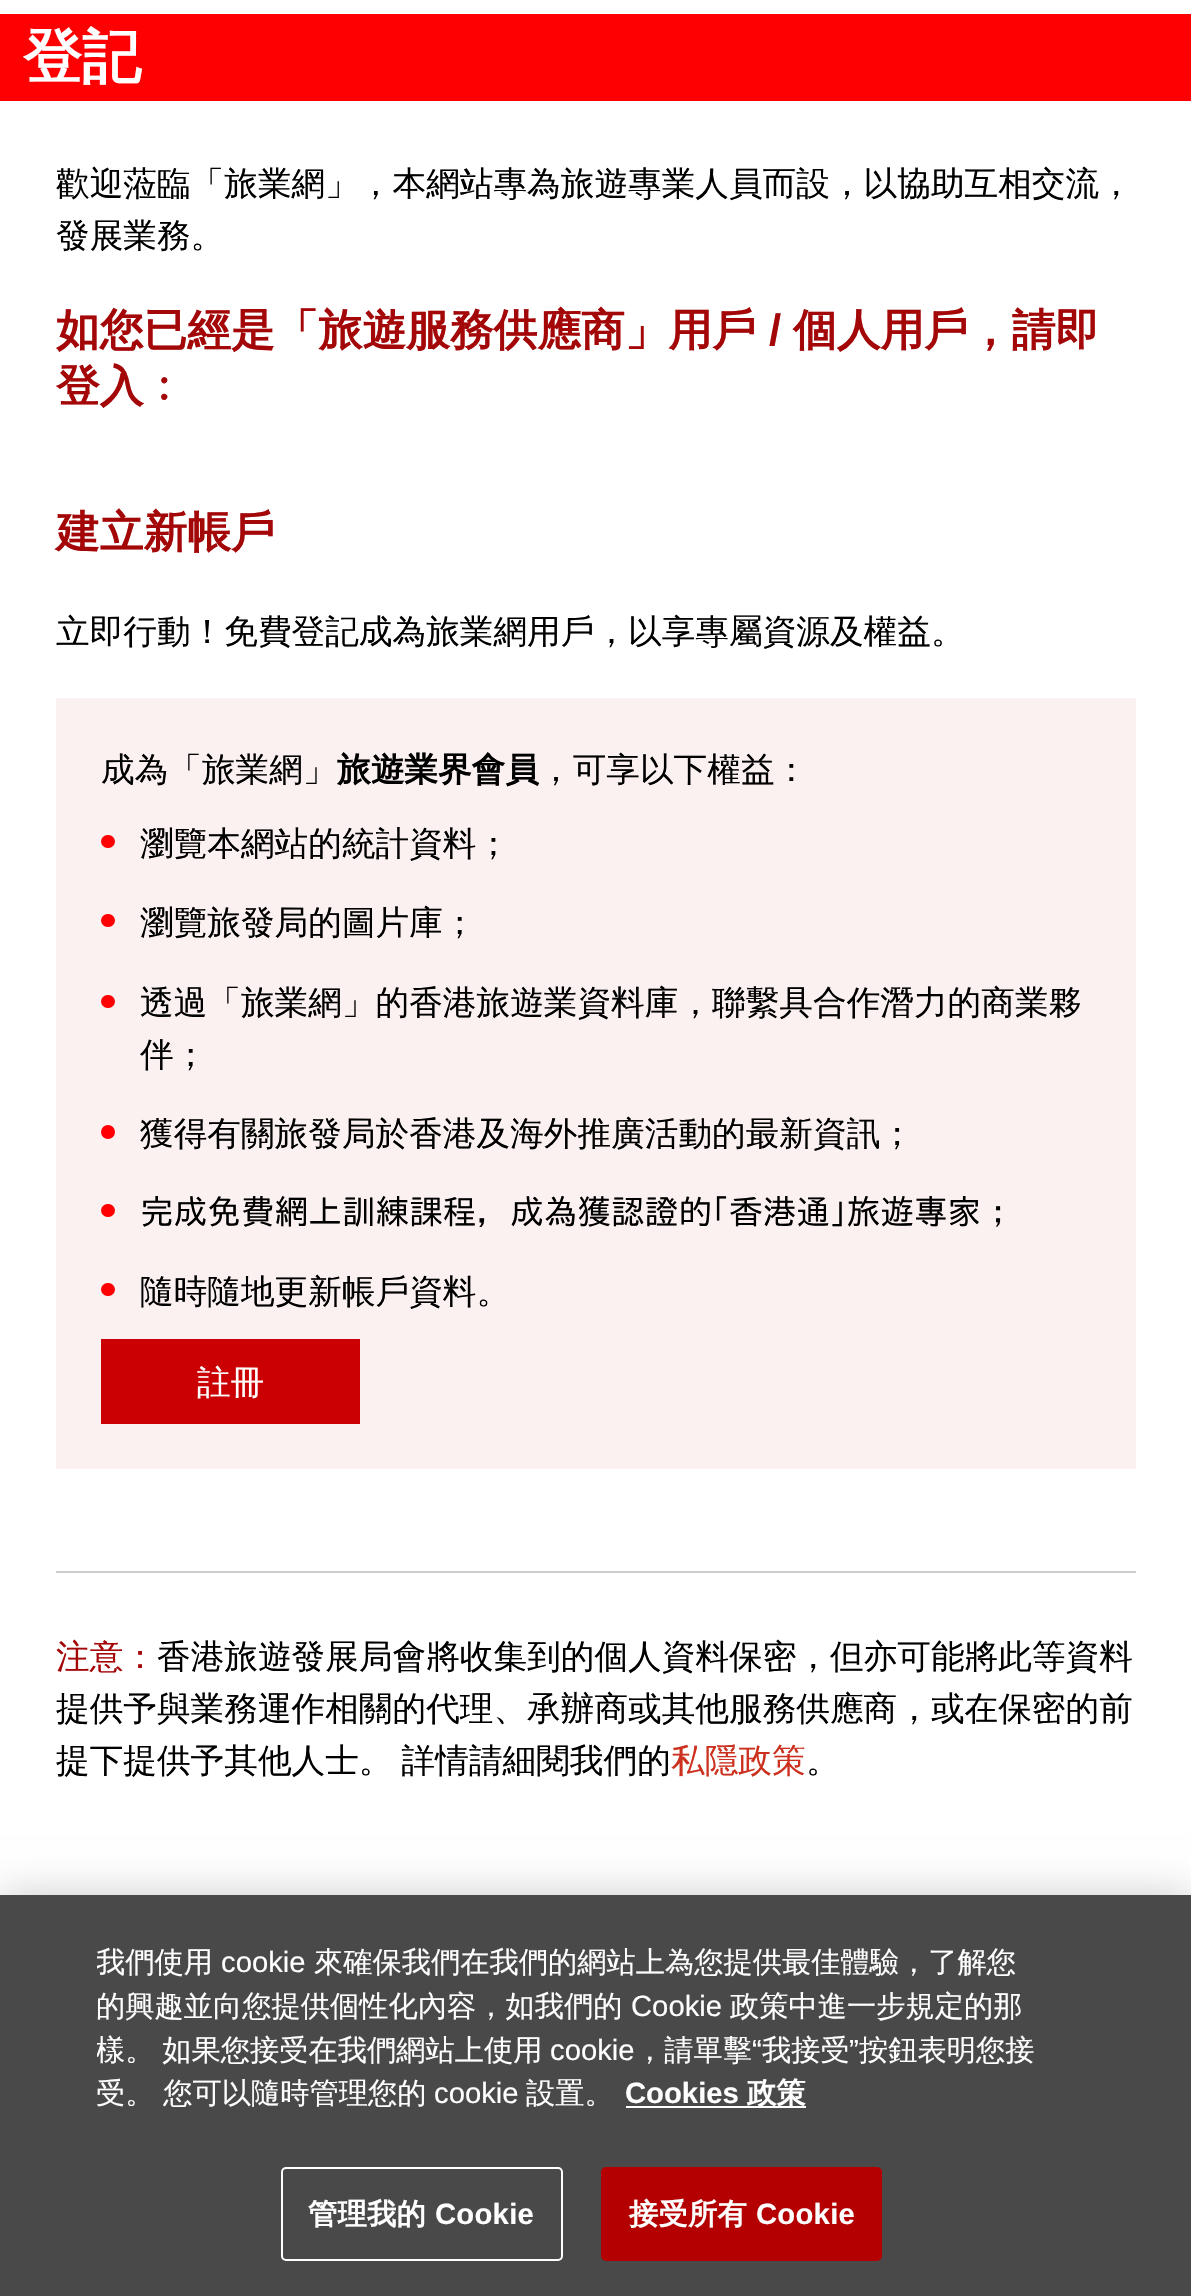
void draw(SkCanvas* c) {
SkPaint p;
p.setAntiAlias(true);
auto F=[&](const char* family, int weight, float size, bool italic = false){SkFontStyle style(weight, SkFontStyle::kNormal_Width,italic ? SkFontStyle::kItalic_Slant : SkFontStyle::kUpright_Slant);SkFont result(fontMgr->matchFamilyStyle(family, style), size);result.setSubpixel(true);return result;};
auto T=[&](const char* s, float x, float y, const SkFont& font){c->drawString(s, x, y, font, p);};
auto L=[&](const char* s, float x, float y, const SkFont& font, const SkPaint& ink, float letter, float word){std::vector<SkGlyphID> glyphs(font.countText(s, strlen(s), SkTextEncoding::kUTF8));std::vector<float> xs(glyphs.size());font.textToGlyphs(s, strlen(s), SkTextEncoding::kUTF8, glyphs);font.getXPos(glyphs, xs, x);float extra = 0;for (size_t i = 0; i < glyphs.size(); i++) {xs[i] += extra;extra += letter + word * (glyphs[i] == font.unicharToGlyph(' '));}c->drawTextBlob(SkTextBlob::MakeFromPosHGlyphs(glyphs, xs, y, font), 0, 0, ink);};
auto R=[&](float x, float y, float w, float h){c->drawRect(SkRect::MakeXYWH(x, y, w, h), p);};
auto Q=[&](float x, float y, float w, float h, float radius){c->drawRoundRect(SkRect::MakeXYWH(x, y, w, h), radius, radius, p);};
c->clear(0xffffffff);
p.setColor(0xfffe0002);
R(0,14,1191,87);
auto f1 = F("WenQuanYi Zen Hei",700,59);
p.setColor(0xffffffff);
T("登記",23,77,f1);
auto f2 = F("WenQuanYi Zen Hei",500,33.65);
p.setColor(0xff000000);
T("歡迎蒞臨「旅業網」，本網站專為旅遊專業人員而設，以協助互相交流，",56,195,f2);
T("發展業務。",56,247,f2);
auto f3 = F("WenQuanYi Zen Hei",700,43.75);
p.setColor(0xffa40708);
T("如您已經是「旅遊服務供應商」用戶",56,345,f3);
auto f4 = F("Liberation Sans",700,43.75);
T("/",769,345,f4);
T("個人用戶，請即",793,345,f3);
T("登入﹕",56,401,f3);
T("建立新帳戶",56,547,f3);
p.setColor(0xff000000);
T("立即行動！免費登記成為旅業網用戶，以享專屬資源及權益。",56,643,f2);
p.setColor(0xfffbf1f1);
R(56,698,1080,771);
p.setColor(0xff000000);
T("成為「旅業網」",101,781,f2);
auto f5 = F("WenQuanYi Zen Hei",700,33.65);
T("旅遊業界會員",337,781,f5);
T("，可享以下權益：",539,781,f2);
p.setColor(0xfffe0002);
Q(101,835,14,13,6.5);
p.setColor(0xff000000);
T("瀏覽本網站的統計資料；",140,855,f2);
p.setColor(0xfffe0002);
Q(101,914,14,13,6.5);
p.setColor(0xff000000);
T("瀏覽旅發局的圖片庫；",140,934,f2);
p.setColor(0xfffe0002);
Q(101,995,14,13,6.5);
p.setColor(0xff000000);
T("透過「旅業網」的香港旅遊業資料庫，聯繫具合作潛力的商業夥",140,1014,f2);
T("伴；",140,1066,f2);
p.setColor(0xfffe0002);
c->drawCircle(108,1132,7,p);
p.setColor(0xff000000);
T("獲得有關旅發局於香港及海外推廣活動的最新資訊；",140,1145,f2);
p.setColor(0xfffe0002);
Q(101,1204,14,13,6.5);
auto f6 = F("IPAGothic",400,33.65);
p.setColor(0xff000000);
T("完成免費網上訓練課程，成為獲認證的｢香港通｣旅遊專家；",140,1224,f6);
p.setColor(0xfffe0002);
Q(101,1283,14,13,6.5);
p.setColor(0xff000000);
T("隨時隨地更新帳戶資料。",140,1303,f2);
p.setColor(0xffcb0002);
R(101,1339,259,85);
p.setColor(0xffffffff);
T("註冊",197,1394,f2);
p.setColor(0xffcccccc);
R(56,1571,1080,2);
p.setColor(0xffa40708);
T("注意：",56,1668,f2);
p.setColor(0xff000000);
T("香港旅遊發展局會將收集到的個人資料保密，但亦可能將此等資料",157,1668,f2);
T("提供予與業務運作相關的代理、承辦商或其他服務供應商，或在保密的前",56,1720,f2);
L("提下提供予其他人士。 詳情請細閱我們的",56,1772,f2,p,0,-1);
p.setColor(0xffcc311f);
T("私隱政策",671,1772,f2);
p.setColor(0xff000000);
T("。",806,1772,f2);
p.setColor(0x33000000);
p.setMaskFilter(SkMaskFilter::MakeBlur(kNormal_SkBlurStyle, 20));
c->drawRect(SkRect::MakeXYWH(0,1895,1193,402),p);
p.setMaskFilter(nullptr);
p.setColor(0xff494949);
R(0,1895,1191,401);
c->save();
c->clipRect(SkRect::MakeXYWH(97,1940,947,204));
auto f7 = F("WenQuanYi Zen Hei",500,29.25);
p.setColor(0xffffffff);
T("我們使用",96,1972,f7);
c->restore();
auto f8 = F("Liberation Sans",400,29.25);
T("cookie",221,1972,f8);
T("來確保我們在我們的網站上為您提供最佳體驗，了解您",314,1972,f7);
T("的興趣並向您提供個性化內容，如我們的",96,2016,f7);
T("Cookie",631,2016,f8);
T("政策中進一步規定的那",730,2016,f7);
c->save();
c->clipRect(SkRect::MakeXYWH(97,1940,947,204));
L("樣。 如果您接受在我們網站上使用",96,2060,f7,p,0,-1);
c->restore();
T("cookie",550,2060,f8);
T("，請單擊",635,2060,f7);
T("“",752,2060,f8);
T("我接受",762,2060,f7);
T("”",849,2060,f8);
T("按鈕表明您接",859,2060,f7);
T("受。 您可以隨時管理您的",96,2103,f7);
T("cookie",434,2103,f8);
T("設置。",526,2103,f7);
auto f9 = F("Liberation Sans",700,29.25);
T("Cookies",625,2103,f9);
R(626,2106,180,2);
auto f10 = F("WenQuanYi Zen Hei",700,29.25);
T("政策",747,2103,f10);
p.setStroke(true);
p.setStrokeWidth(2);
c->drawRoundRect(SkRect::MakeXYWH(282,2168,280,92),4,4,p);
p.setStroke(false);
L("管理我的",308,2224,f10,p,.25,0);
L("Cookie",435,2224,f9,p,.25,0);
p.setColor(0xffb40001);
c->drawRoundRect(SkRect::MakeXYWH(602,2168,279,92),4,4,p);
p.setStroke(true);
c->drawRoundRect(SkRect::MakeXYWH(602,2168,279,92),4,4,p);
p.setStroke(false);
p.setColor(0xffffffff);
L("接受所有",629,2224,f10,p,.25,0);
L("Cookie",756,2224,f9,p,.25,0);
}
